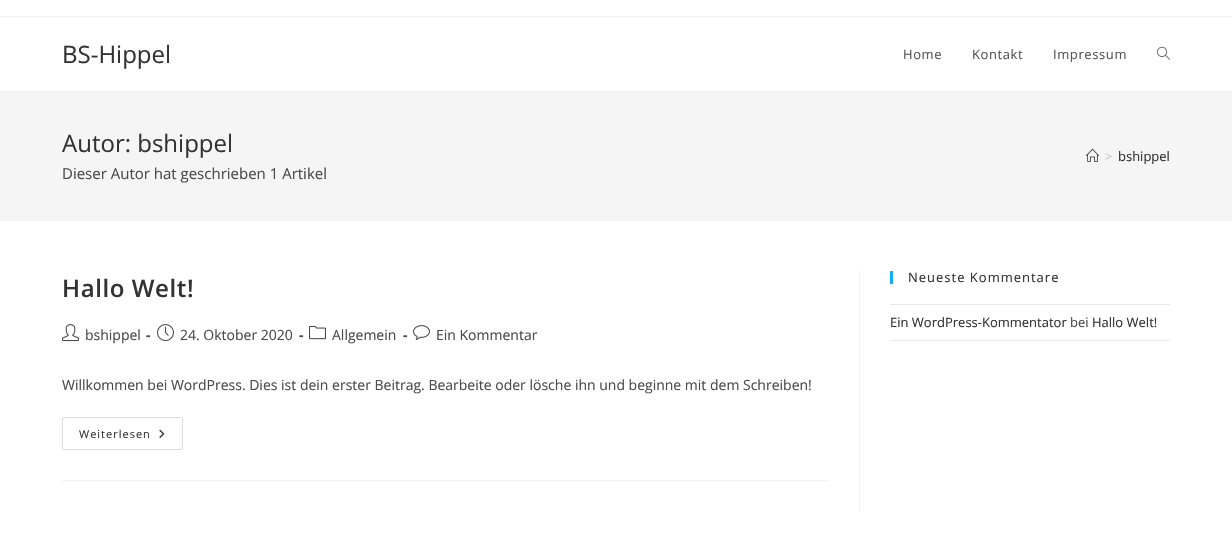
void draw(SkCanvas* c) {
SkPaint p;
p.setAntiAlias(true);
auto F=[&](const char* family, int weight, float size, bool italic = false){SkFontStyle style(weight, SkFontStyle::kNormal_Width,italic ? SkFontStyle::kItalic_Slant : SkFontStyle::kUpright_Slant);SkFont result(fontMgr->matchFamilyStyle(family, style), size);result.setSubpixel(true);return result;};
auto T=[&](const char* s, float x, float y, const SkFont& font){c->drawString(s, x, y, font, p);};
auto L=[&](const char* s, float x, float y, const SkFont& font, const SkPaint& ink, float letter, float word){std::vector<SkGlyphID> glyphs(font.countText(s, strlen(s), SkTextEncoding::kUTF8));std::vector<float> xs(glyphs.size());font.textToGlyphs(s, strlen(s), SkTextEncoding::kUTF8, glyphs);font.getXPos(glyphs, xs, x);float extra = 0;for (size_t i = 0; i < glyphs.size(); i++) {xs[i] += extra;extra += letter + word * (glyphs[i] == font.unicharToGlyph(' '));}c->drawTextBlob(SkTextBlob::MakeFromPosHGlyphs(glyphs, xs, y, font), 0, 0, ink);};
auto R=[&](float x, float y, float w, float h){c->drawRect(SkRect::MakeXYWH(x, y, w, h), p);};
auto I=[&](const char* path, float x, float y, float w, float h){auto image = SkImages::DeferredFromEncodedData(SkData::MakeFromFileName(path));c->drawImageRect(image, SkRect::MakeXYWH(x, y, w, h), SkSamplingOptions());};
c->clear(0xffffffff);
p.setColor(0xfff1f1f1);
R(0,16,1232,1);
R(0,91,1232,1);
auto f1 = F("Open Sans",400,24);
p.setColor(0xff333333);
T("BS-Hippel",62,63,f1);
auto f2 = F("Open Sans",400,13);
p.setColor(0xff555555);
L("Home",903,59,f2,p,.6,0);
L("Kontakt",972,59,f2,p,.6,0);
L("Impressum",1053,59,f2,p,.6,0);
I("1.png",1157,46,13,14);
p.setColor(0xfff5f5f5);
R(0,92,1232,129);
p.setColor(0xff333333);
T("Autor: bshippel",62,152,f1);
I("2.png",1086,148,13,14);
p.setColor(0xffc6c6c6);
T(">",1105,161,f2);
p.setColor(0xff333333);
T("bshippel",1118,161,f2);
auto f3 = F("Open Sans",400,15);
p.setColor(0xff4a4a4a);
T("Dieser Autor hat geschrieben 1 Artikel",62,179,f3);
p.setColor(0xfff1f1f1);
R(859,271,1,240);
R(62,480,767,1);
auto f4 = F("Open Sans",600,24);
p.setColor(0xff333333);
L("Hallo Welt!",62,297,f4,p,.6,0);
I("3.png",62,324,17,18);
auto f5 = F("Open Sans",400,14);
p.setColor(0xff4a4a4a);
T("bshippel",85,340,f5);
auto f6 = F("Open Sans",700,14);
T("-",146,340,f6);
I("4.png",157,324,17,18);
T("24. Oktober 2020",180,340,f5);
T("-",299,340,f6);
I("5.png",309,325,17,15);
T("Allgemein",332,340,f5);
T("-",403,340,f6);
I("6.png",413,325,17,15);
T("Ein Kommentar",436,340,f5);
T("Willkommen bei WordPress. Dies ist dein erster Beitrag. Bearbeite oder lösche ihn und beginne mit dem Schreiben!",62,390,f5);
p.setStroke(true);
p.setStrokeWidth(1);
p.setColor(0xffdddddd);
c->drawRoundRect(SkRect::MakeXYWH(62.5,417.5,120,32),1.5,1.5,p);
auto f7 = F("Open Sans",400,11);
p.setStroke(false);
p.setColor(0xff333333);
L("Weiterlesen",79,438,f7,p,1,0);
I("7.png",159,429,6,9);
p.setColor(0xff13aff0);
R(890,271,3,13);
p.setColor(0xff333333);
L("Neueste Kommentare",908,282,f2,p,1,0);
p.setColor(0xffe9e9e9);
R(890,304,280,1);
R(890,340,280,1);
p.setColor(0xff333333);
T("Ein WordPress-Kommentator",890,327,f2);
p.setColor(0xff4a4a4a);
T("bei",1070,327,f2);
p.setColor(0xff333333);
T("Hallo Welt!",1092,327,f2);
}
